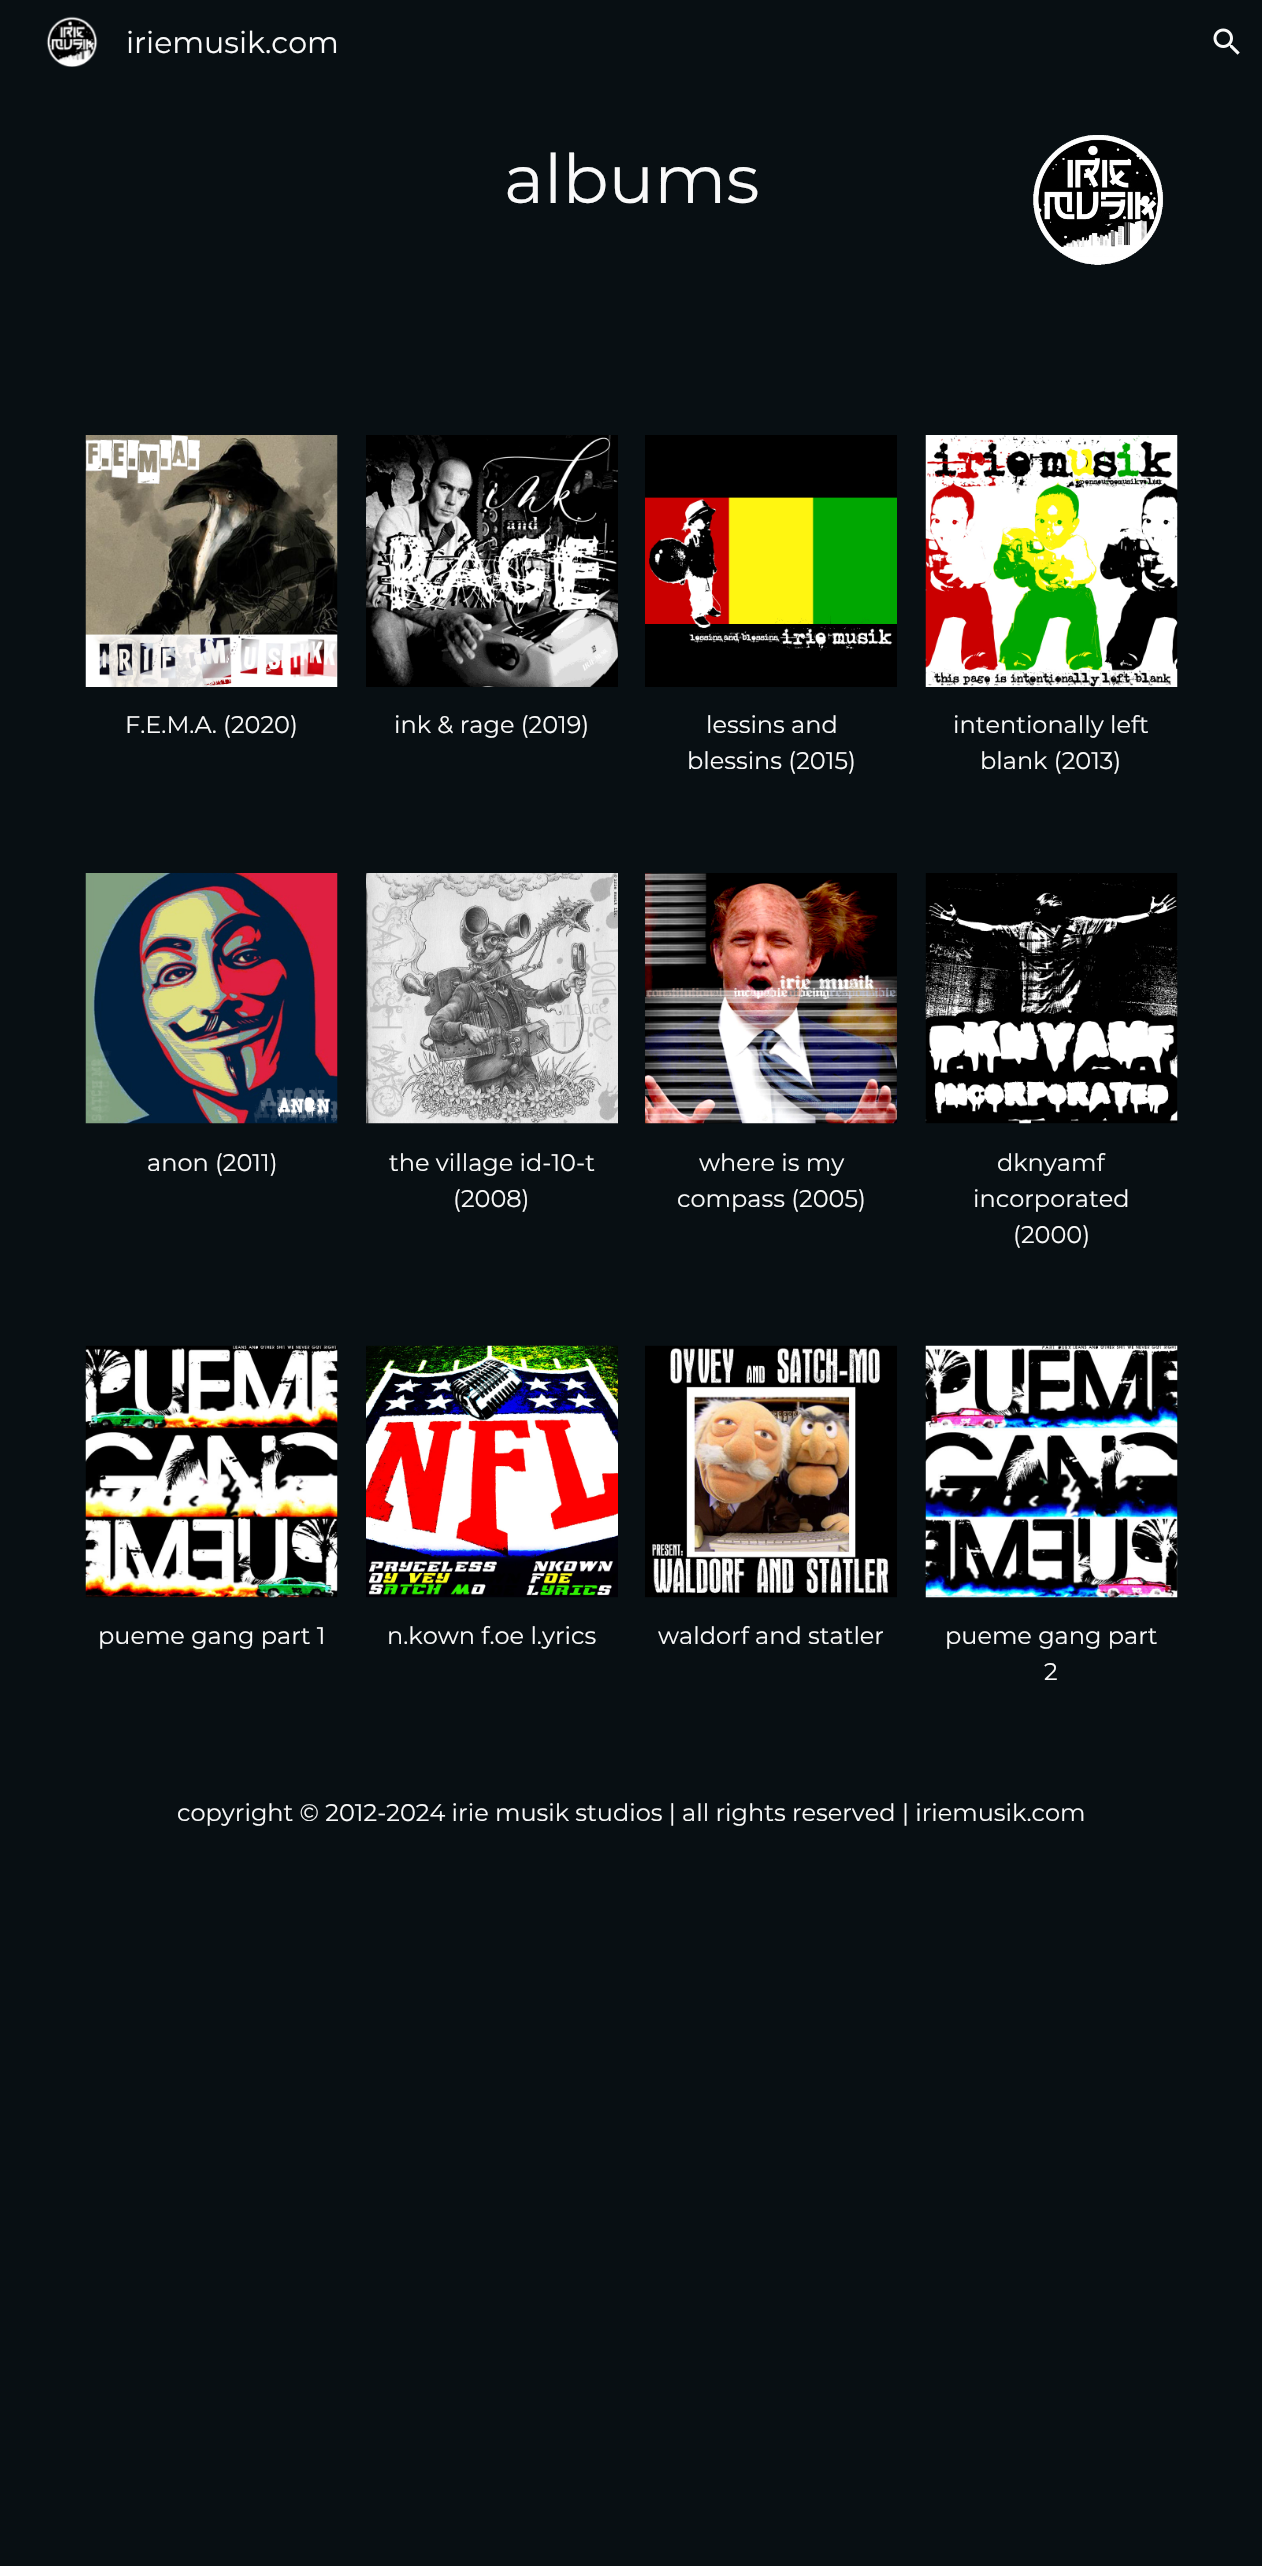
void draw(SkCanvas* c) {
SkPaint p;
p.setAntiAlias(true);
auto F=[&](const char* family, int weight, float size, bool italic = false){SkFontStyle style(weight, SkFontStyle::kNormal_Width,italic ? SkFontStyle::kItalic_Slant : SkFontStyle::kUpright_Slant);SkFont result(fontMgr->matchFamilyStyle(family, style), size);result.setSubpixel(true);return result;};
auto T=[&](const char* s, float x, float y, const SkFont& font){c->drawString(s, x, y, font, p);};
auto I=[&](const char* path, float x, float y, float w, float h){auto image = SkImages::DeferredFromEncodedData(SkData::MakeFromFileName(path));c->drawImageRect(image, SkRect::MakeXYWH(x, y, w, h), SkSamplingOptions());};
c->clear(0xff080f13);
I("1.png",46,16,52,51);
auto f1 = F("Montserrat",400,30);
p.setColor(0xfff9f9f9);
T("iriemusik.com",126,53,f1);
I("2.png",1213,28,27,27);
auto f2 = F("Montserrat",400,68);
T("albums",504,203,f2);
I("3.png",1033,135,131,130);
I("4.png",85,435,253,252);
auto f3 = F("Montserrat",400,24);
T("F.E.M.A. (2020)",125,733,f3);
I("5.png",366,435,252,252);
T("ink & rage (2019)",394,733,f3);
I("6.png",645,435,252,252);
T("lessins and",706,733,f3);
T("blessins (2015)",687,769,f3);
I("7.png",925,435,253,252);
T("intentionally left",953,733,f3);
T("blank (2013)",980,769,f3);
I("8.png",85,873,253,251);
T("anon (2011)",147,1171,f3);
I("9.png",366,873,252,251);
T("the village id-10-t",389,1171,f3);
T("(2008)",453,1207,f3);
I("10.png",645,873,252,251);
T("where is my",699,1171,f3);
T("compass (2005)",677,1207,f3);
I("11.png",925,873,253,251);
T("dknyamf",997,1171,f3);
T("incorporated",973,1207,f3);
T("(2000)",1013,1243,f3);
I("12.png",85,1345,253,253);
T("pueme gang part 1",98,1644,f3);
I("13.png",366,1345,252,253);
T("n.kown f.oe l.yrics",387,1644,f3);
I("14.png",645,1345,252,253);
T("waldorf and statler",658,1644,f3);
I("15.png",925,1345,253,253);
T("pueme gang part",945,1644,f3);
T("2",1044,1680,f3);
T("copyright © 2012-2024 irie musik studios | all rights reserved | iriemusik.com",177,1821,f3);
}
